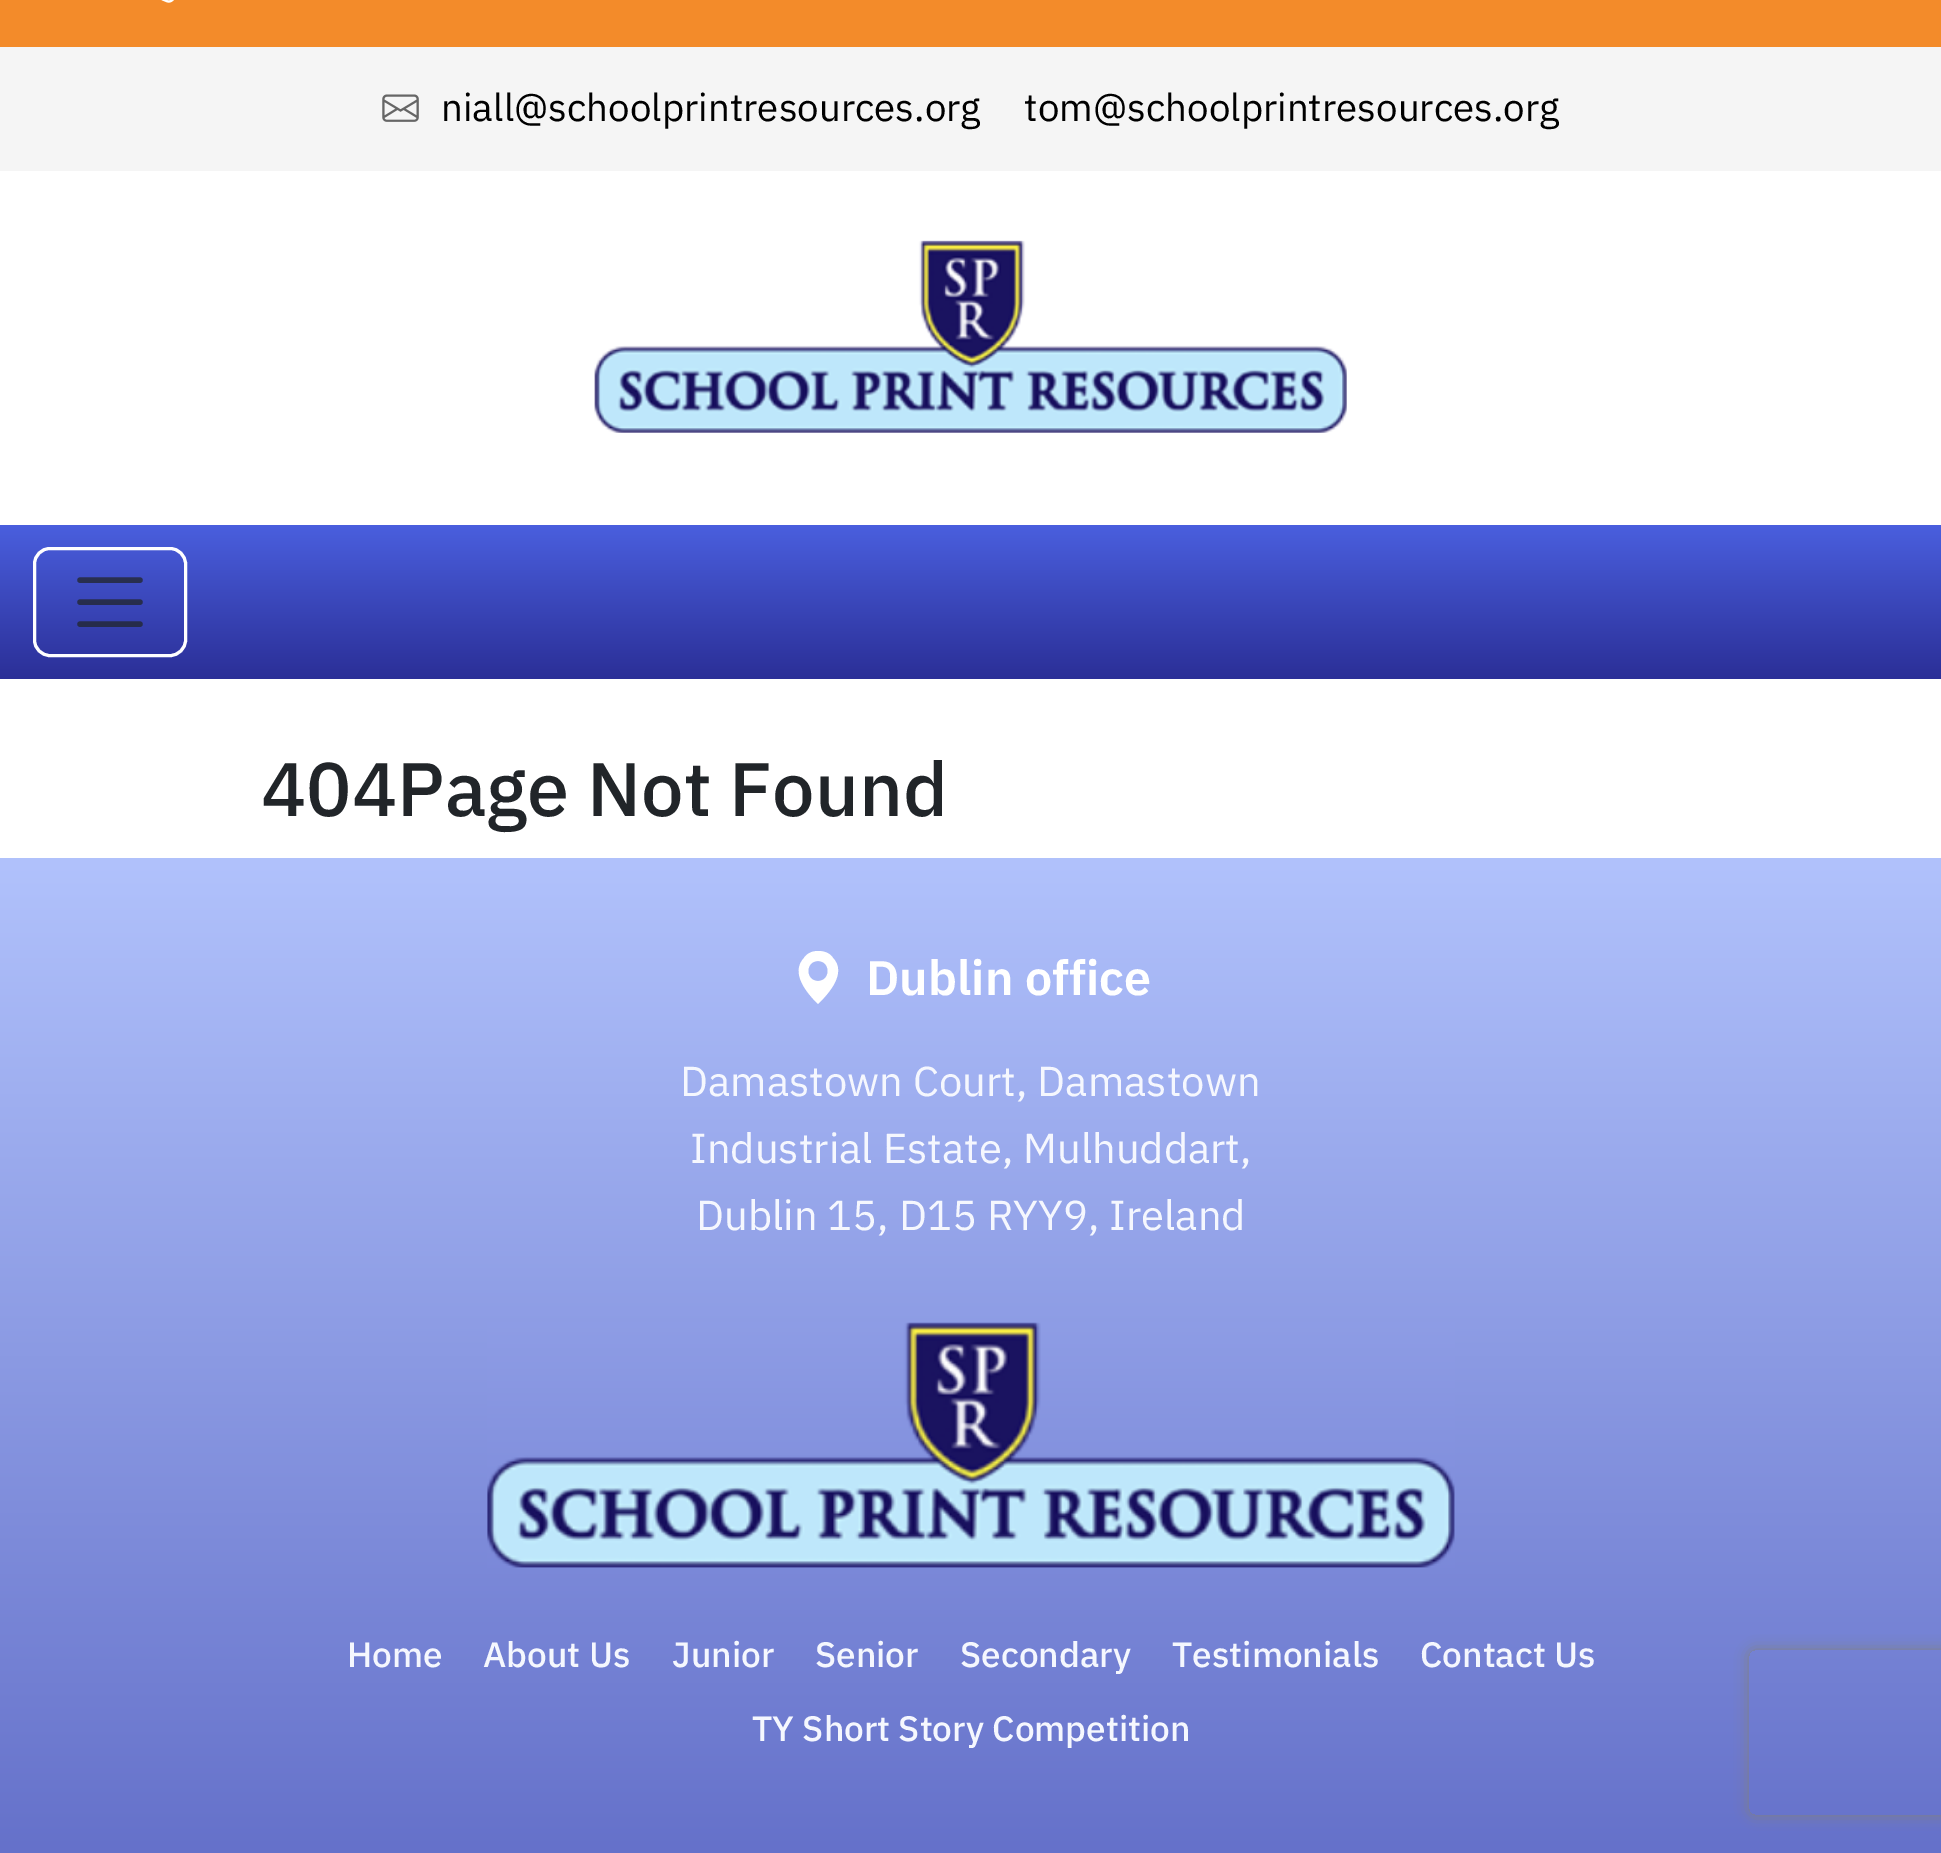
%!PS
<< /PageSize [1941 1853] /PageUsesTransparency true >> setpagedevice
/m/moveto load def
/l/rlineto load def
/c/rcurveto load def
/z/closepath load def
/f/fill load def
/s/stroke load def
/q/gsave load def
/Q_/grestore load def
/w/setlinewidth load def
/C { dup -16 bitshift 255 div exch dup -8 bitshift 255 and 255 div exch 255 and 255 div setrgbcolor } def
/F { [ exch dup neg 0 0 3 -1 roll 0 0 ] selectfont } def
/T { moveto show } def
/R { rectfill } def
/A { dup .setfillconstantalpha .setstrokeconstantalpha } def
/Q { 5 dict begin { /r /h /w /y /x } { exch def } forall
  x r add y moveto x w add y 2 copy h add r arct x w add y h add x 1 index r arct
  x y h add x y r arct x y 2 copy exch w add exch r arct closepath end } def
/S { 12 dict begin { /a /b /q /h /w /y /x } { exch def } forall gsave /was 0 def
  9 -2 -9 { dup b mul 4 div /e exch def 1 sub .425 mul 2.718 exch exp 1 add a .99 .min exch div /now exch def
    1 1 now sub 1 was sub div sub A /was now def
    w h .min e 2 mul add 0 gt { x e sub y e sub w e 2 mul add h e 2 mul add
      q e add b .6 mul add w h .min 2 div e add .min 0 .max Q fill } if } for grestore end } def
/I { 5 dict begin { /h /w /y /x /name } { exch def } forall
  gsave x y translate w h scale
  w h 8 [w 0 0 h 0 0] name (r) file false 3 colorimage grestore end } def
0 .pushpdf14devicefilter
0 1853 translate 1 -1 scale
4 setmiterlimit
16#FFFFFF C
0 0 1941 1853 R
16#F38B2A C
0 0 1941 47 R
(1.rgb) 161 0 13 3 I
16#F5F5F5 C
0 47 1941 124 R
(2.rgb) 382 94 37 28 I
/IBMPlexSans-Regular 38.5 F
16#000000 C
(niall@schoolprintresources.org) 441 121 T
(tom@schoolprintresources.org) 1024 121 T
(3.rgb) 594 240 753 193 I
q 0 525 m 1941 0 l 0 154 l -1941 0 l z clip newpath
<< /ShadingType 2 /ColorSpace /DeviceRGB /Coords [971 525 971 679] /Extend [true true] /Function << /FunctionType 2 /Domain [0 1] /C0 [.29 .373 .871] /C1 [.169 .184 .592] /N 1 >> >> shfill Q_
16#FFFFFF C
3 w
34.5 548.5 151 107 15.5 Q s
0.75 A
16#212529 C
5.5 w
1 setlinecap
80 580 m 60 0 l 80 602 m 60 0 l 80 624 m 60 0 l s
/IBMPlexSans-Medium 75.75 F
1 A
(404Page Not Found) 261 816 T
q 0 858 m 1941 0 l 0 995 l -1941 0 l z clip newpath
<< /ShadingType 2 /ColorSpace /DeviceRGB /Coords [971 858 971 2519] /Extend [true true] /Function << /FunctionType 2 /Domain [0 1] /C0 [.694 .761 .988] /C1 [.196 .231 .663] /N 1 >> >> shfill Q_
16#FFFFFF C
818 1004 m 11 -11 29 -31 15 -46 c -3 -5 -9 -7 -15 -7 c -5 0 -11 2 -14 7 c -14 15 3 35 14 46 c z 818 981 m -13 0 -13 -20 0 -20 c 13 0 13 20 0 20 c z f
/IBMPlexSans-SemiBold 48.5 F
(Dublin office) 866 995 T
/IBMPlexSans-Regular 41.75 F
16#F5F7FE C
(Damastown Court, Damastown) 680 1096 T
(Industrial Estate, Mulhuddart,) 690 1163 T
(Dublin 15, D15 RYY9, Ireland) 696 1230 T
(4.rgb) 487 1322 968 246 I
/IBMPlexSans-Medium 35.25 F
(Home) 347 1667 T
(About Us) 483 1667 T
(Junior) 672 1667 T
(Senior) 815 1667 T
(Secondary) 960 1667 T
(Testimonials) 1172 1667 T
(Contact Us) 1420 1667 T
(TY Short Story Competition) 752 1741 T
q
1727 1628 m 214 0 l 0 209 l -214 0 l z 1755 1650 m 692 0 l 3.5 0 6 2.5 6 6 c 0 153 l 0 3.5 -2.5 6 -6 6 c -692 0 l -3.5 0 -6 -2.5 -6 -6 c 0 -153 l 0 -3.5 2.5 -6 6 -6 c z eoclip newpath
16#808080 C
1749 1650 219 165 6 7 1 S
Q_
.poppdf14devicefilter showpage
